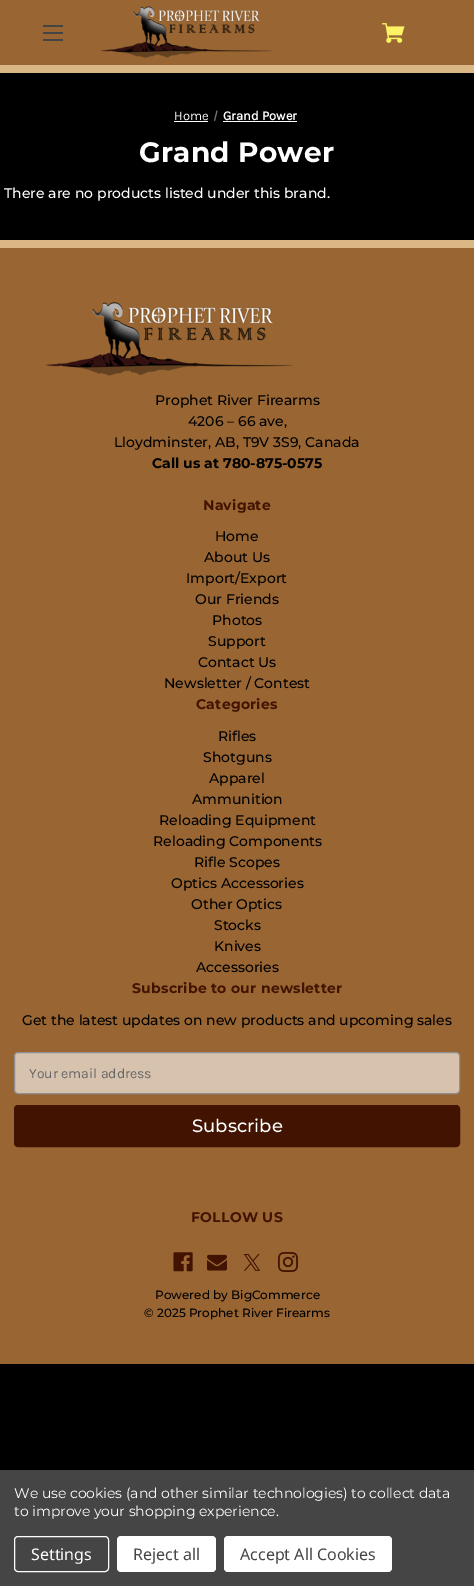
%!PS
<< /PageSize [474 1586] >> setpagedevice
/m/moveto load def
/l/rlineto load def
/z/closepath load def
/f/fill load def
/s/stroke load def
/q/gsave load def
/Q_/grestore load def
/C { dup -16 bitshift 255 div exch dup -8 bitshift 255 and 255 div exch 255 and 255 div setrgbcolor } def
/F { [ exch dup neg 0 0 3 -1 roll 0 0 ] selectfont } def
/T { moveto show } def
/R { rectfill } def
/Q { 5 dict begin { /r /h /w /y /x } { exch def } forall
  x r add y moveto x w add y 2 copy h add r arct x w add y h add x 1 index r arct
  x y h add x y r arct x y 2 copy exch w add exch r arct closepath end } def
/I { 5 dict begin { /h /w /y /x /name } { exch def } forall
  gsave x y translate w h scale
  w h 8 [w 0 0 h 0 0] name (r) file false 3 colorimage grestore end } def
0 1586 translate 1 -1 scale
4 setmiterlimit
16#000000 C
0 0 474 1586 R
16#996633 C
0 0 474 65 R
16#DBB786 C
0 65 474 8 R
16#444444 C
43 32 20 2 R
43 25 20 2 R
43 39 20 2 R
(1.rgb) 100 6 173 52 I
(2.rgb) 382 23 23 20 I
/Karla-Regular 13 F
16#FFFFFF C
(Home) 174 120 T
174 121 34 1 R
16#757575 C
216.5 110.5 m 1 .5 l -2.5 10 l -1 -.5 l z f
/Karla-Bold 13 F
16#FFFFFF C
(Grand Power) 223 120 T
223 121 74 1 R
/Montserrat-Bold 28 F
139 162 m .25 0 (Grand Power) ashow
/Montserrat-Medium 14 F
(There are no products listed under this brand.) 4 198 T
16#996633 C
0 248 474 1116 R
16#DBB786 C
0 240 474 8 R
(3.rgb) 45 302 248 74 I
16#000000 C
(Prophet River Firearms) 155 405 T
(4206 – 66 ave,) 188 426 T
(Lloydminster, AB, T9V 3S9, Canada) 114 447 T
/Montserrat-Bold 14 F
(Call us at 780-875-0575) 152 468 T
16#411300 C
203 510 m .25 0 (Navigate) ashow
/Montserrat-Medium 14 F
16#000000 C
(Home) 215 541 T
(About Us) 204 562 T
(Import/Export) 186 583 T
(Our Friends) 195 604 T
(Photos) 212 625 T
(Support) 208 646 T
(Contact Us) 198 667 T
(Newsletter / Contest) 164 688 T
/Montserrat-Bold 14 F
16#411300 C
196 709 m .25 0 (Categories) ashow
/Montserrat-Medium 14 F
16#000000 C
(Rifles) 218 741 T
(Shotguns) 203 762 T
(Apparel) 209 783 T
(Ammunition) 192 804 T
(Reloading Equipment) 159 825 T
(Reloading Components) 153 846 T
(Rifle Scopes) 194 867 T
(Optics Accessories) 171 888 T
(Other Optics) 191 909 T
(Stocks) 214 930 T
(Knives) 214 951 T
(Accessories) 196 972 T
/Montserrat-Bold 14 F
16#411300 C
132 993 m .25 0 (Subscribe to our newsletter) ashow
/Montserrat-Medium 14 F
16#000000 C
(Get the latest updates on new products and upcoming sales) 22 1025 T
16#D6C2AD C
14.5 1052.5 445 41 3.5 Q q f Q_
16#8F8F8F C
s
/Karla-Regular 14 F
16#666666 C
(Your email address) 29 1078 T
16#411300 C
14.5 1105.5 445 41 3.5 Q q f Q_
s
/Montserrat-Medium 18 F
16#FFFFFF C
(Subscribe) 192 1132 T
/Montserrat-Bold 14 F
16#411300 C
191 1222 m .25 0 (FOLLOW US) ashow
(4.rgb) 173 1252 20 20 I
(5.rgb) 207 1254 20 17 I
(6.rgb) 244 1254 16 17 I
(7.rgb) 278 1252 20 20 I
/Montserrat-Medium 12 F
16#000000 C
(Powered by BigCommerce) 155 1299 T
(© 2025 Prophet River Firearms) 144 1317 T
16#454545 C
0 1470 474 116 R
/Montserrat-Regular 14 F
16#FFFFFF C
14 1498 m -.05 0 (We use cookies \(and other similar technologies\) to collect data) ashow
14 1516 m -.05 0 (to improve your shopping experience.) ashow
14.5 1536.5 94 35 3.5 Q s
/NotoSans-Regular 16 F
(Settings) 31 1560 T
117 1536 99 36 4 Q f
16#454545 C
(Reject all) 133 1560 T
16#FFFFFF C
224 1536 168 36 4 Q f
16#454545 C
(Accept All Cookies) 240 1560 T
showpage
